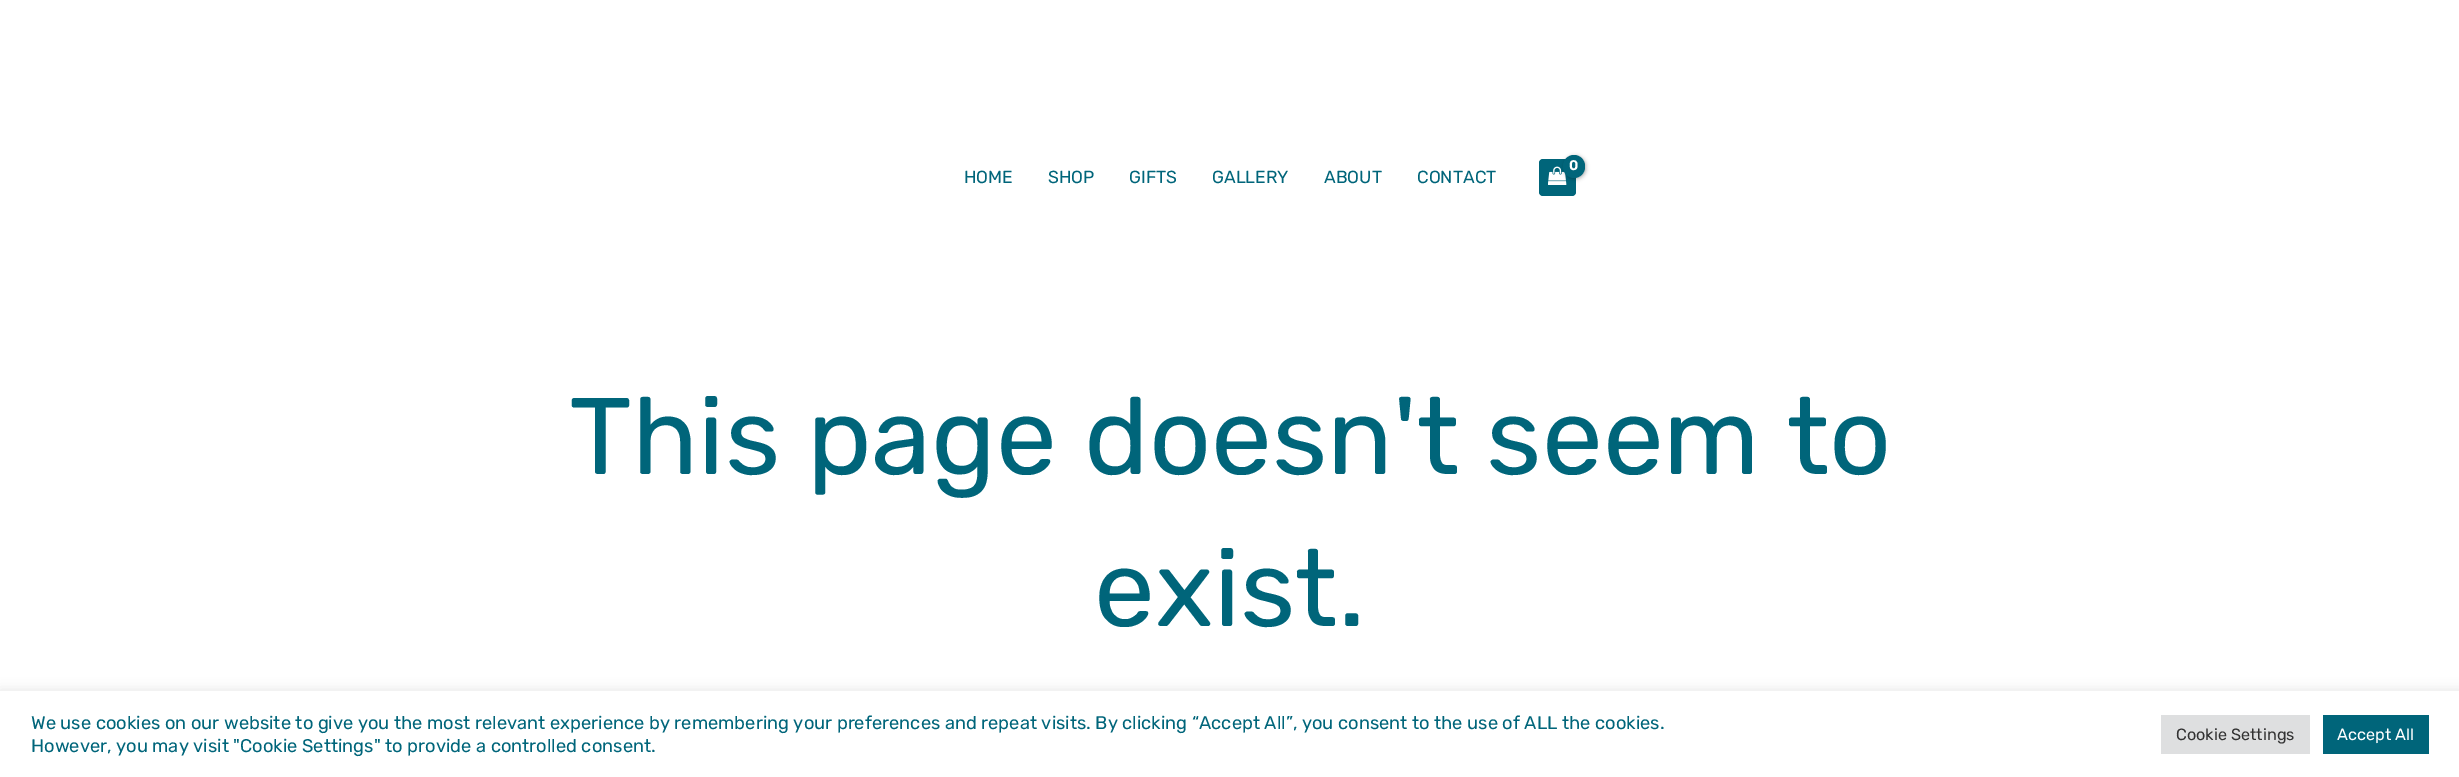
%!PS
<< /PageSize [2459 777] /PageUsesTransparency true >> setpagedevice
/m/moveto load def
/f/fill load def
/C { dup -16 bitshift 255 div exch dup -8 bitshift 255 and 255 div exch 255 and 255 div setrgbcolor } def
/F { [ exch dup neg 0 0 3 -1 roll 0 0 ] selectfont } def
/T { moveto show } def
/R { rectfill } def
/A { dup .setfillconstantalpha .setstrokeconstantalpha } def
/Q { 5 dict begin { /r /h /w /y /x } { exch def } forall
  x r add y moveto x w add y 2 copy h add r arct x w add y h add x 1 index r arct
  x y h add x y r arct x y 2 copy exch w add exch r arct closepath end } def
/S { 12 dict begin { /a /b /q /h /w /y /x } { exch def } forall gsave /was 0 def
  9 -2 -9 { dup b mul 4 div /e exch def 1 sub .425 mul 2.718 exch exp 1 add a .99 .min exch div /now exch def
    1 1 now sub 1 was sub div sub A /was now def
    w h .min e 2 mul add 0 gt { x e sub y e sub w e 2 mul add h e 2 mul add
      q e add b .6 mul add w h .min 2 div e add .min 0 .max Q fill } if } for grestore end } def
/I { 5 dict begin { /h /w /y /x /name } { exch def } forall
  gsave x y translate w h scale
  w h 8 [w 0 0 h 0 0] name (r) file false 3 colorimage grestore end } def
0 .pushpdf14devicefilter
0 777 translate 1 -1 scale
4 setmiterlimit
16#FFFFFF C
0 0 2459 777 R
16#00657A C
1539 159 37 37 4 Q f
(1.rgb) 1548 166 19 19 I
16#000000 C
1564 156 22 23 11 2 .3 S
16#00657A C
1563 155 22 23 11 Q f
/Rubik-SemiBold 14 F
16#FFFFFF C
1569 170 m -1 0 (0) ashow
/Rubik-Light 17.5 F
16#00657A C
(HOME) 964 183 T
(SHOP) 1048 183 T
(GIFTS) 1129 183 T
(GALLERY) 1212 183 T
(ABOUT) 1324 183 T
(CONTACT) 1417 183 T
/Rubik-Light 108.75 F
(This page doesn't seem to) 569 474 T
(exist.) 1094 626 T
16#ACABAB C
0 690 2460 86 0 6 .3 S
16#FFFFFF C
0 691 2459 86 R
/Rubik-Light 18.33 F
16#00657A C
(We use cookies on our website to give you the most relevant experience by remembering your preferences and repeat visits. By clicking “Accept All”, you consent to the use of ALL the cookies.) 31 729 T
(However, you may visit "Cookie Settings" to provide a controlled consent.) 31 752 T
16#DEDFE0 C
2161 715 149 39 R
/Rubik-Light 16.25 F
16#333333 C
(Cookie Settings) 2176 740 T
16#00657A C
2323 715 106 39 R
16#FFFFFF C
(Accept All) 2337 740 T
.poppdf14devicefilter showpage
